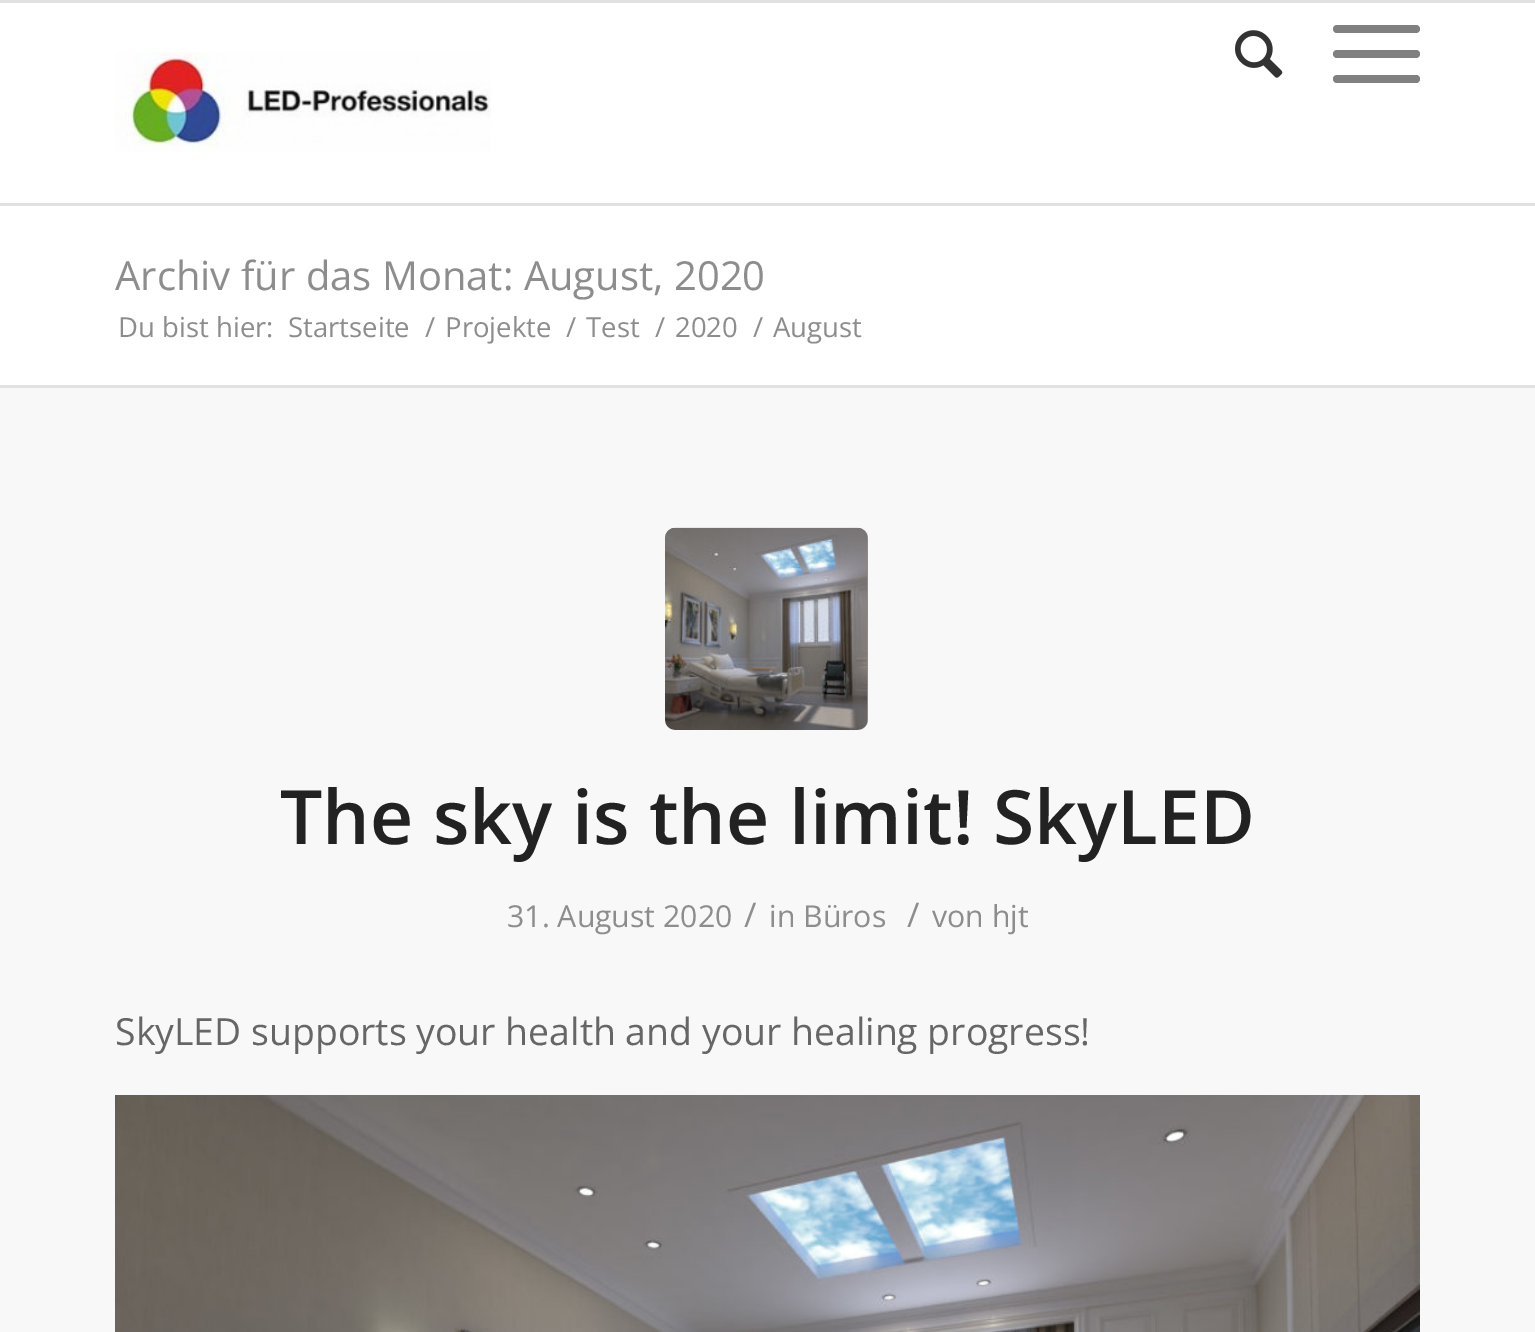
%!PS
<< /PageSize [1535 1332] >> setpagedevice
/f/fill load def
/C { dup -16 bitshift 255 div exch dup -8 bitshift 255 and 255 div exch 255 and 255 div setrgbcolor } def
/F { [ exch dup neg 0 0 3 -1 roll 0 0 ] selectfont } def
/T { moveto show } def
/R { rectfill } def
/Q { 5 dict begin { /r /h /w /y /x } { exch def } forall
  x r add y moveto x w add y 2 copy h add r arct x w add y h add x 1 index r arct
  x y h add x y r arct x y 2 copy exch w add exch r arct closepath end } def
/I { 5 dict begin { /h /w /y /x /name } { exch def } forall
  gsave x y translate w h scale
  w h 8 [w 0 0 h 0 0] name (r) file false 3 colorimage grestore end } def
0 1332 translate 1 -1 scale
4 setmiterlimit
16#FFFFFF C
0 0 1535 1332 R
16#E1E1E1 C
0 0 1535 3 R
0 203 1535 3 R
(1.rgb) 115 52 376 100 I
(2.rgb) 1235 30 48 48 I
16#808080 C
1333 50 87 8 4 Q f
1333 25 87 8 4 Q f
1333 75 87 8 4 Q f
/OpenSans-Regular 40 F
16#8D8D8D C
(Archiv für das Monat: August, 2020) 115 290 T
/OpenSans-Regular 27.5 F
(Du bist hier:) 118 337 T
(Startseite) 288 337 T
(/) 425 337 T
(Projekte) 445 337 T
(/) 566 337 T
(Test) 586 337 T
(/) 655 337 T
(2020) 675 337 T
(/) 753 337 T
(August) 773 337 T
16#F8F8F8 C
0 388 1535 944 R
16#E1E1E1 C
0 385 1535 3 R
16#8D8D8D C
665 528 203 202 10 Q f
(3.rgb) 665 527 203 203 I
/OpenSans-SemiBold 75 F
16#222222 C
(The sky is the limit! SkyLED) 280 844 T
/OpenSans-Regular 30.25 F
16#8D8D8D C
(31. August 2020) 507 927 T
/OpenSans-Regular 34 F
(/) 744 927 T
/OpenSans-Regular 30.25 F
(in Büros) 769 927 T
/OpenSans-Regular 34 F
(/) 907 927 T
/OpenSans-Regular 30.25 F
(von hjt) 932 927 T
/OpenSans-Regular 37.4 F
16#666666 C
(SkyLED supports your health and your healing progress!) 115 1045 T
(4.rgb) 115 1095 1305 237 I
showpage
